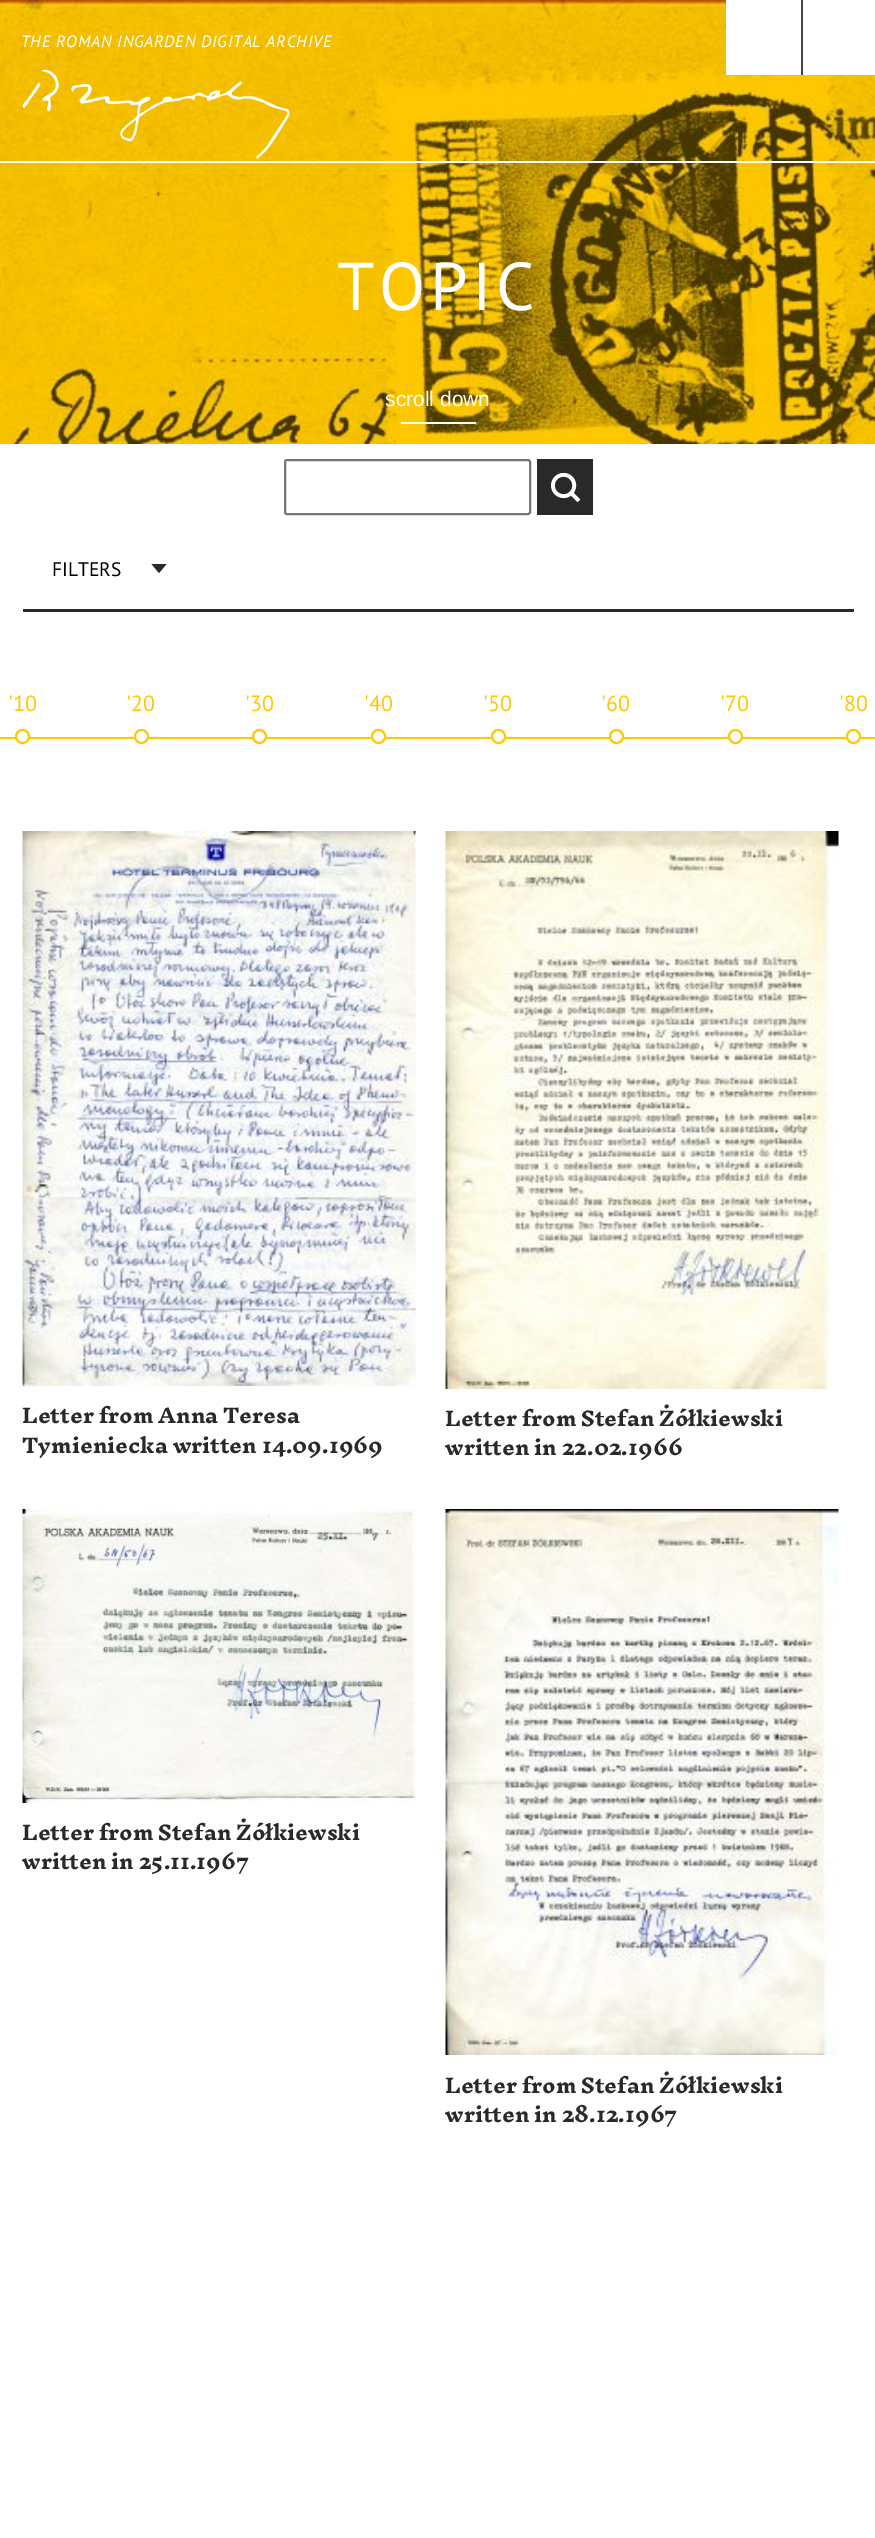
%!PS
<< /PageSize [875 2538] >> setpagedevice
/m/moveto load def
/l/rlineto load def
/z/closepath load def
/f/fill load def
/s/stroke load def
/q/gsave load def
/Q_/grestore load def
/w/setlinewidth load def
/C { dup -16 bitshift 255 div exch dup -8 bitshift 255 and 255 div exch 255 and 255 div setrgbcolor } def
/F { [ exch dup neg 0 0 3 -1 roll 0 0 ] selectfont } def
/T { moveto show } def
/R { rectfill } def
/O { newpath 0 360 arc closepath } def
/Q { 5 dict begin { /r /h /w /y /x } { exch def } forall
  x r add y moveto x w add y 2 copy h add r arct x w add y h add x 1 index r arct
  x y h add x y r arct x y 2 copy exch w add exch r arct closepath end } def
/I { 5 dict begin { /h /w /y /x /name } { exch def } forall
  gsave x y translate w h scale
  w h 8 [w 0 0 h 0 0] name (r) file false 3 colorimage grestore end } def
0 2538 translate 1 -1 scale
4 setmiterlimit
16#FFFFFF C
0 0 875 2538 R
(1.rgb) 0 0 875 444 I
0 161 875 2 R
/PTSans-Italic 16.5 F
21 47 m .75 0 (THE ROMAN INGARDEN DIGITAL ARCHIVE) ashow
(2.rgb) 22 69 268 90 I
726 0 75 75 R
803 0 72 75 R
16#444444 C
801 0 2 75 R
/PTSans-Regular 67.5 F
16#FFFFFF C
337 310 m 4.5 0 (TOPIC) ashow
/LiberationSans-Regular 21 F
(scroll down) 385 406 T
401 422 75 2 R
16#767676 C
2 w
285 460 245 54 2 Q s
16#292929 C
537 459 56 56 R
(3.rgb) 551 473 30 30 I
23 609 831 3 R
/PTSans-Regular 19.5 F
16#000000 C
(FILTERS) 52 576 T
16#292929 C
151.5 564 m 15 0 l -7.5 9 l z f
16#FFC800 C
0 737 875 2 R
/PTSans-Regular 22 F
('10) 8 711 T
16#FFFFFF C
22.5 736.5 6.5 O q f Q_
16#FFC800 C
s
('20) 126 711 T
16#FFFFFF C
141.5 736.5 6.5 O q f Q_
16#FFC800 C
s
('30) 245 711 T
16#FFFFFF C
259.5 736.5 6.5 O q f Q_
16#FFC800 C
s
('40) 364 711 T
16#FFFFFF C
378.5 736.5 6.5 O q f Q_
16#FFC800 C
s
('50) 483 711 T
16#FFFFFF C
498.5 736.5 6.5 O q f Q_
16#FFC800 C
s
('60) 601 711 T
16#FFFFFF C
616.5 736.5 6.5 O q f Q_
16#FFC800 C
s
('70) 720 711 T
16#FFFFFF C
735.5 736.5 6.5 O q f Q_
16#FFC800 C
s
('80) 839 711 T
16#FFFFFF C
853.5 736.5 6.5 O q f Q_
16#FFC800 C
s
(4.rgb) 22 831 394 555 I
/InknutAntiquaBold-Bold 19.5 F
16#292929 C
(Letter from Anna Teresa) 22 1423 T
(Tymieniecka written 14.09.1969) 22 1453 T
(5.rgb) 445 831 394 558 I
(Letter from Stefan Żółkiewski) 445 1426 T
(written in 22.02.1966) 445 1455 T
(6.rgb) 22 1509 394 294 I
(Letter from Stefan Żółkiewski) 22 1840 T
(written in 25.11.1967) 22 1869 T
(7.rgb) 445 1509 394 546 I
(Letter from Stefan Żółkiewski) 445 2093 T
(written in 28.12.1967) 445 2122 T
showpage
